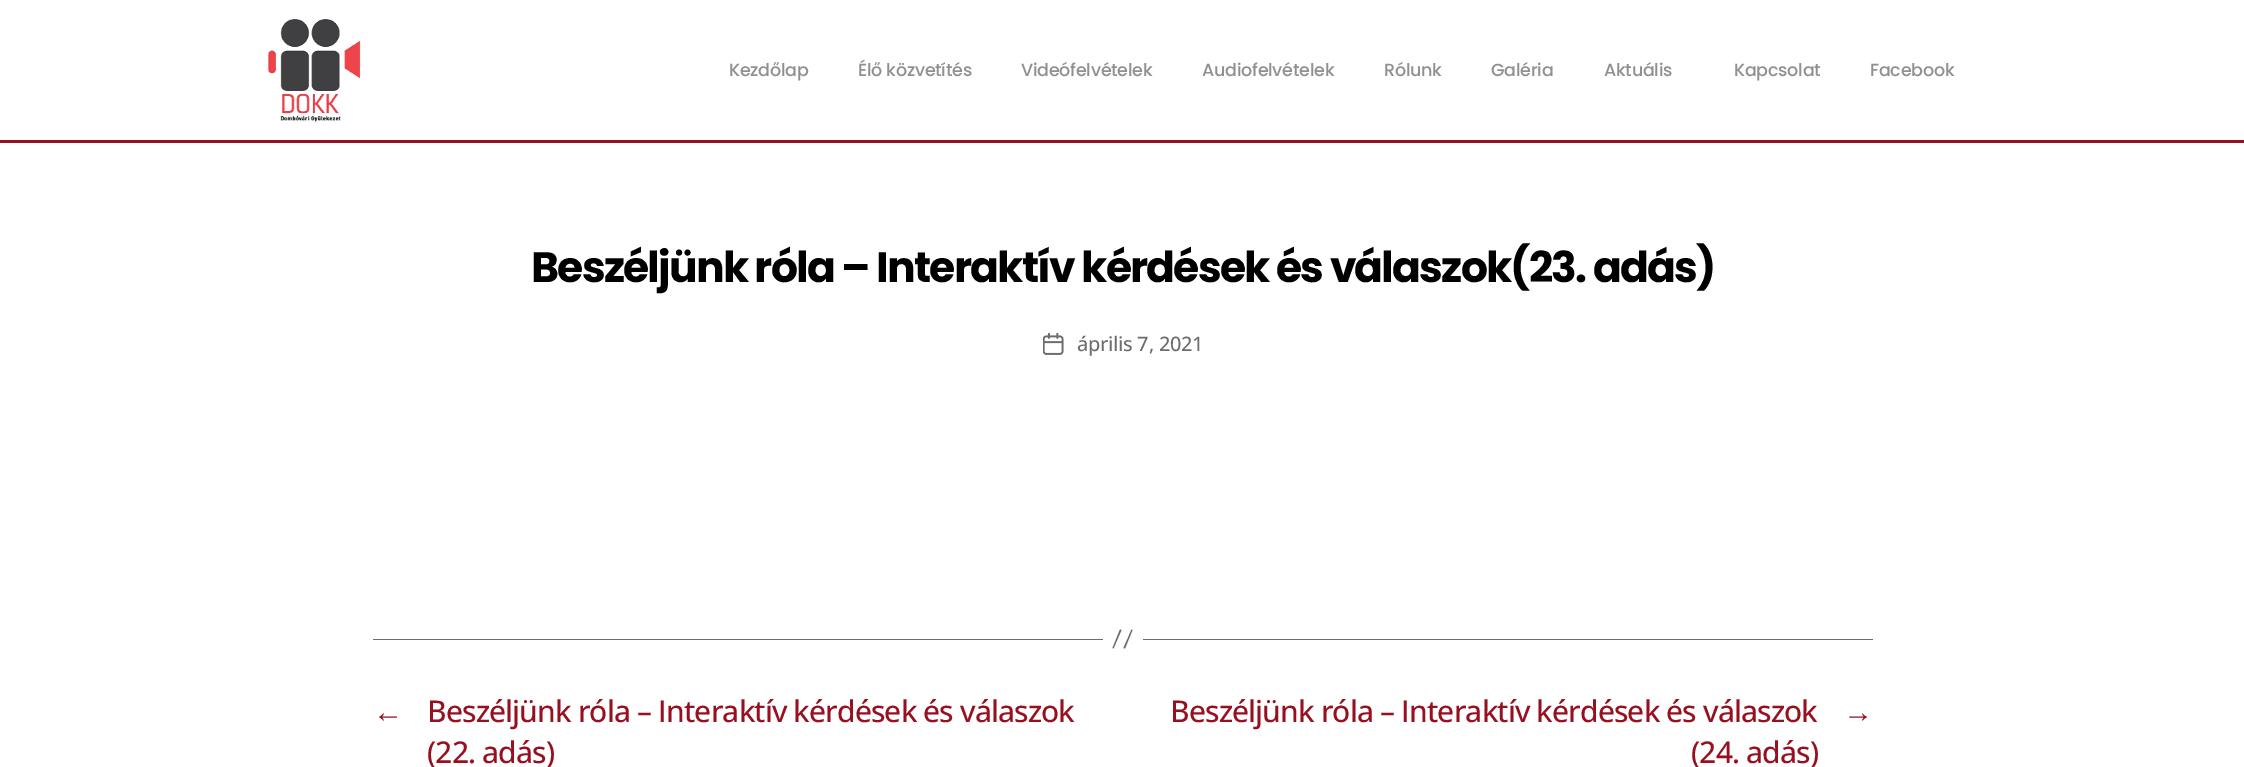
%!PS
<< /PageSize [2244 767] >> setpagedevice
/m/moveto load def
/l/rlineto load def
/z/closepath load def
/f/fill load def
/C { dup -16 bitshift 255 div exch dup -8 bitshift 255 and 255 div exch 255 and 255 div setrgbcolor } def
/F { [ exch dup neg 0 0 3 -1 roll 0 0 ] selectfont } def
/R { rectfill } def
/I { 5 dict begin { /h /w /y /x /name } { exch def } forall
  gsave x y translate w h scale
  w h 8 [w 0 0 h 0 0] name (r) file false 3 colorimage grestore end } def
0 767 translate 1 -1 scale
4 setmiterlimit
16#FFFFFF C
0 0 2244 767 R
16#981020 C
0 140 2244 3 R
(1.rgb) 268 19 93 103 I
/Poppins-Medium 17.5 F
16#909090 C
729 76 m -.25 0 (Kezdőlap) ashow
858 76 m -.25 0 (Élő közvetítés) ashow
1021 76 m -.25 0 (Videófelvételek) ashow
1202 76 m -.25 0 (Audiofelvételek) ashow
1384 76 m -.25 0 (Rólunk) ashow
1491 76 m -.25 0 (Galéria) ashow
1604 76 m -.25 0 (Aktuális) ashow
1734 76 m -.25 0 (Kapcsolat) ashow
1870 76 m -.25 0 (Facebook) ashow
/Poppins-Bold 42.5 F
16#000000 C
531 282 m -1.77 0 (Beszéljünk róla – Interaktív kérdések és válaszok\(23. adás\)) ashow
(2.rgb) 1043 333 21 22 I
/OpenSans-Medium 20 F
16#6D6D6D C
1077 351 m -.3 0 (április 7, 2021) ashow
1143 639 730 1 R
373 639 730 1 R
1120 629.5 m 1.5 .5 l -8 18.5 l -1 -.5 l z 1131.5 629.5 m 1 .5 l -7.5 18.5 l -1.5 -.5 l z f
/LiberationSans-Regular 30 F
16#981020 C
373 722 m -.85 0 (←) ashow
/OpenSans-Medium 30 F
427 722 m -.85 0 (Beszéljünk róla – Interaktív kérdések és válaszok) ashow
427 763 m -.85 0 (\(22. adás\)) ashow
1170 722 m -.85 0 (Beszéljünk róla – Interaktív kérdések és válaszok) ashow
1691 763 m -.85 0 (\(24. adás\)) ashow
/LiberationSans-Regular 30 F
1843 722 m -.85 0 (→) ashow
showpage
